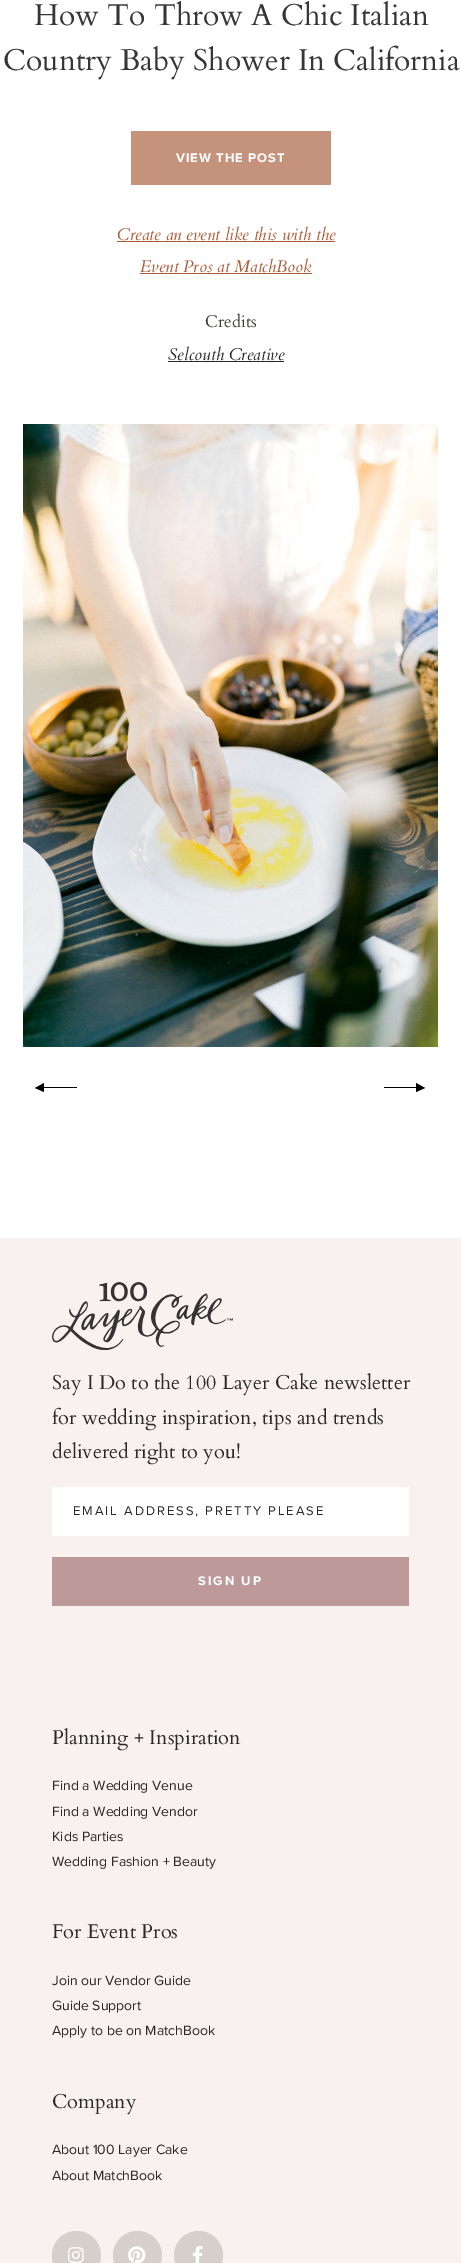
%!PS
<< /PageSize [461 2263] >> setpagedevice
/m/moveto load def
/l/rlineto load def
/z/closepath load def
/f/fill load def
/q/gsave load def
/Q_/grestore load def
/C { dup -16 bitshift 255 div exch dup -8 bitshift 255 and 255 div exch 255 and 255 div setrgbcolor } def
/F { [ exch dup neg 0 0 3 -1 roll 0 0 ] selectfont } def
/T { moveto show } def
/R { rectfill } def
/O { newpath 0 360 arc closepath } def
/I { 5 dict begin { /h /w /y /x /name } { exch def } forall
  gsave x y translate w h scale
  w h 8 [w 0 0 h 0 0] name (r) file false 3 colorimage grestore end } def
0 2263 translate 1 -1 scale
4 setmiterlimit
16#FFFFFF C
0 0 461 2263 R
/Cardo-Regular 30 F
16#363636 C
(How To Throw A Chic Italian) 34 25 T
(Country Baby Shower In California) 3 70 T
16#C5937C C
131 131 200 54 R
/ProximaNova-Bold 13 F
16#FFFFFF C
176 162 m 1 0 (VIEW THE POST) ashow
/Cardo-Italic 17 F
16#AB5C37 C
(Create an event like this with the) 117 240 T
117 241 218 1 R
(Event Pros at MatchBook) 140 272 T
140 273 172 1 R
/Cardo-Regular 17 F
16#3D3C39 C
(Credits) 205 327 T
/Cardo-Italic 17 F
16#282828 C
(Selcouth Creative) 168 360 T
168 361 116 1 R
(1.rgb) 23 424 415 623 I
q
35 1083 42 9 rectclip
16#000000 C
44 1083 m 0 4 l 52 0 l 0 1 l -52 0 l 0 4 l -9 -4 l z f
Q_
q
384 1083 41 9 rectclip
16#000000 C
416 1083 m 9 5 l -9 4 l 0 -4 l -52 0 l 0 -1 l 52 0 l z f
Q_
16#F8F1EF C
0 1238 461 1025 R
(2.rgb) 52 1282 181 68 I
/Cardo-Regular 20 F
16#282828 C
(Say I Do to the 100 Layer Cake newsletter) 52 1389 T
(for wedding inspiration, tips and trends) 52 1424 T
(delivered right to you!) 52 1458 T
16#FFFFFF C
52 1487 357 49 R
/ProximaNova-Regular 13 F
16#282828 C
73 1515 m 1.95 0 (EMAIL ADDRESS, PRETTY PLEASE) ashow
16#BE9999 C
52 1557 357 49 R
/ProximaNova-Bold 13 F
16#FFFFFF C
198 1585 m 1.95 0 (SIGN UP) ashow
/Cardo-Regular 20 F
16#282828 C
(Planning + Inspiration) 52 1744 T
/ProximaNova-Regular 14 F
(Find a Wedding Venue) 52 1790 T
(Find a Wedding Vendor) 52 1816 T
(Kids Parties) 52 1841 T
(Wedding Fashion + Beauty) 52 1866 T
/Cardo-Regular 20 F
(For Event Pros) 52 1938 T
/ProximaNova-Regular 14 F
(Join our Vendor Guide) 52 1985 T
(Guide Support) 52 2010 T
(Apply to be on MatchBook) 52 2035 T
/Cardo-Regular 20 F
(Company) 52 2108 T
/ProximaNova-Regular 14 F
(About 100 Layer Cake) 52 2154 T
(About MatchBook) 52 2180 T
16#D6CFCA C
76.5 2255.5 24.5 O f
(3.rgb) 68 2247 16 16 I
137.5 2255.5 24.5 O f
(4.rgb) 128 2246 18 17 I
198.5 2255.5 24.5 O f
(5.rgb) 192 2246 11 17 I
showpage
